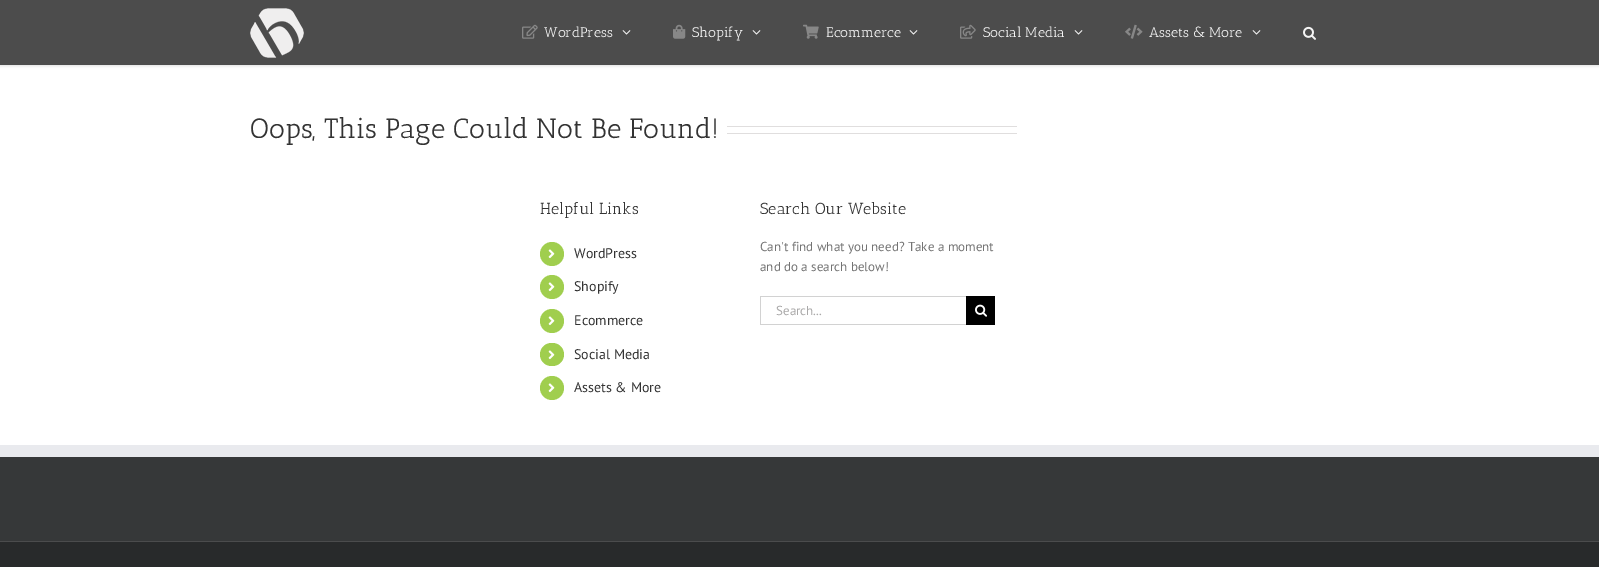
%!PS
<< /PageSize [1599 567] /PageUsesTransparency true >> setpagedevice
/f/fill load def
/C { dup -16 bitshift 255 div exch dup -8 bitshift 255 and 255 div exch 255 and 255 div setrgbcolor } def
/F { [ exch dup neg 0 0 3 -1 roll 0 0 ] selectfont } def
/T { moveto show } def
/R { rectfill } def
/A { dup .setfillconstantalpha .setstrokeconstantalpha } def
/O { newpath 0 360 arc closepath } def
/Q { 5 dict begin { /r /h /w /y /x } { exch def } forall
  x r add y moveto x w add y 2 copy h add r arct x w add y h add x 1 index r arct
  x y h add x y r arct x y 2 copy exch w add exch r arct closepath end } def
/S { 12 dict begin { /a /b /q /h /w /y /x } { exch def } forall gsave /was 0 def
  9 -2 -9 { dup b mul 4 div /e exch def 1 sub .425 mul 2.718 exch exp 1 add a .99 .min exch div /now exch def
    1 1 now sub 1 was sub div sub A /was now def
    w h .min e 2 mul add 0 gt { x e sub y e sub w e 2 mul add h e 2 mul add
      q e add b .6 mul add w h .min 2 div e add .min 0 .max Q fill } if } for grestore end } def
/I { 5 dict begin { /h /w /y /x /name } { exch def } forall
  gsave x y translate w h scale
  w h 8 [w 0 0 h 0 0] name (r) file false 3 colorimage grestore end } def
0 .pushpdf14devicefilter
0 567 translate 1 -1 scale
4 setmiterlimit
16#FFFFFF C
0 0 1599 567 R
16#000000 C
0 1 1599 65 0 1.5 .12 S
16#4C4C4C C
0 0 1599 65 R
(1.rgb) 250 8 54 50 I
(2.rgb) 522 24 16 15 I
/AnticSlab-Regular 14 F
16#F4F4F4 C
(WordPress) 544 37 T
(3.rgb) 622 30 9 5 I
(4.rgb) 673 24 13 15 I
(Shopify) 692 37 T
(3.rgb) 752 30 9 5 I
(5.rgb) 803 24 16 15 I
(Ecommerce) 826 37 T
(3.rgb) 909 30 9 5 I
(6.rgb) 960 24 16 15 I
(Social Media) 983 37 T
(3.rgb) 1074 30 9 5 I
(7.rgb) 1125 24 18 15 I
(Assets & More) 1149 37 T
(3.rgb) 1252 30 9 5 I
(8.rgb) 1303 26 13 14 I
/AnticSlab-Regular 28 F
16#333333 C
(Oops, This Page Could Not Be Found!) 250 138 T
16#E0DEDE C
727 126 290 1 R
727 133 290 1 R
/AnticSlab-Regular 16 F
16#333333 C
(Helpful Links) 540 214 T
16#A0CE4E C
552 254 12 O f
(9.rgb) 548 249 7 10 I
/PTSans-Regular 14 F
16#333333 C
(WordPress) 574 258 T
16#A0CE4E C
552 287 12 O f
(9.rgb) 548 282 7 10 I
16#333333 C
(Shopify) 574 291 T
16#A0CE4E C
552 321 12 O f
(9.rgb) 548 316 7 10 I
16#333333 C
(Ecommerce) 574 325 T
16#A0CE4E C
540 343 24 23 11.5 Q f
(9.rgb) 548 350 7 10 I
16#333333 C
(Social Media) 574 359 T
16#A0CE4E C
552 388 12 O f
(9.rgb) 548 383 7 10 I
16#333333 C
(Assets & More) 574 392 T
/AnticSlab-Regular 16 F
(Search Our Website) 760 214 T
/PTSans-Regular 13 F
16#747474 C
(Can't find what you need? Take a moment) 760 251 T
(and do a search below!) 760 271 T
16#D2D2D2 C
760 296 206 1 R
760 324 206 1 R
760 296 1 29 R
16#AAA9A9 C
(Search...) 776 315 T
16#000000 C
966 296 29 29 R
(10.rgb) 975 304 12 13 I
16#363839 C
0 457 1599 84 R
16#E9EAEE C
0 445 1599 12 R
16#282A2B C
0 542 1599 25 R
16#4B4C4D C
0 541 1599 1 R
.poppdf14devicefilter showpage
